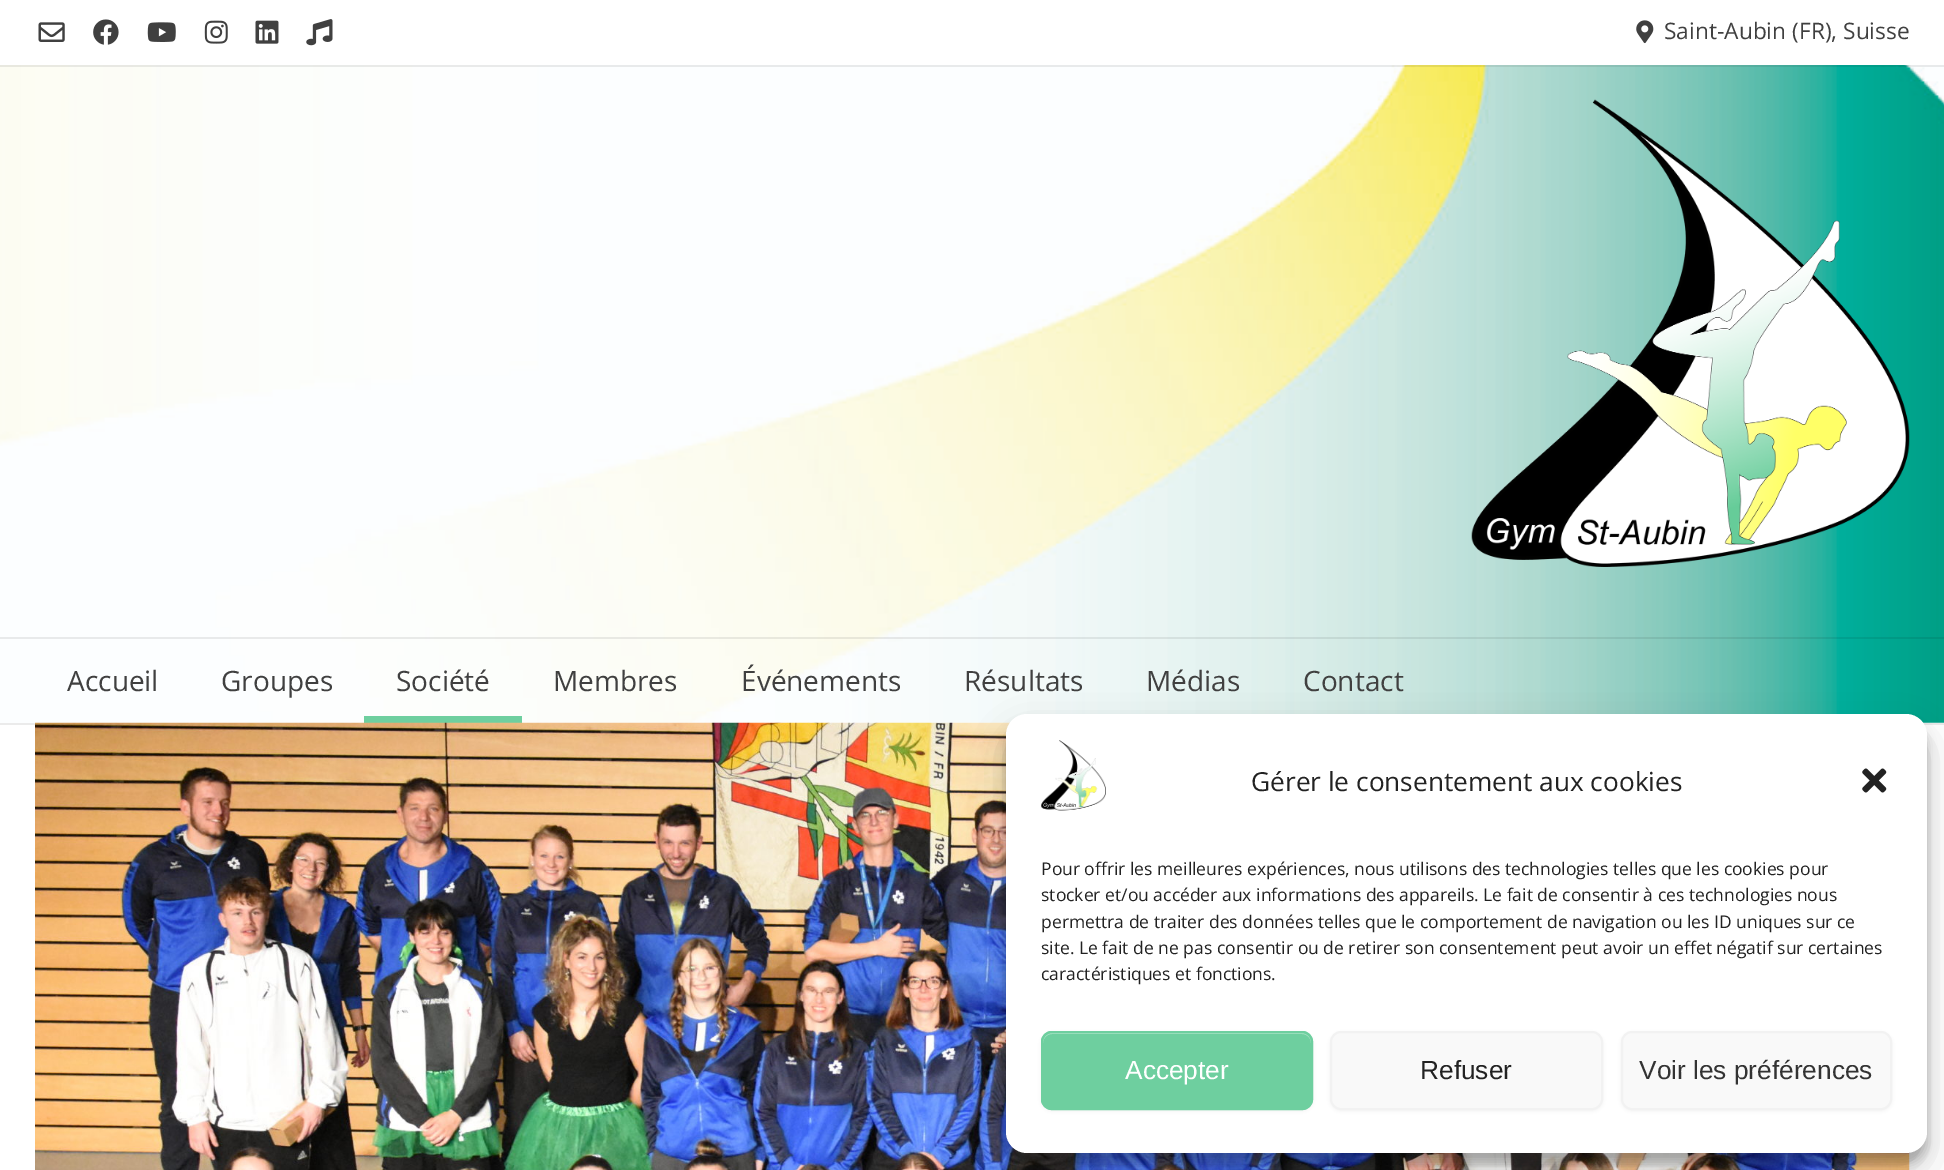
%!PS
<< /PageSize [1944 1170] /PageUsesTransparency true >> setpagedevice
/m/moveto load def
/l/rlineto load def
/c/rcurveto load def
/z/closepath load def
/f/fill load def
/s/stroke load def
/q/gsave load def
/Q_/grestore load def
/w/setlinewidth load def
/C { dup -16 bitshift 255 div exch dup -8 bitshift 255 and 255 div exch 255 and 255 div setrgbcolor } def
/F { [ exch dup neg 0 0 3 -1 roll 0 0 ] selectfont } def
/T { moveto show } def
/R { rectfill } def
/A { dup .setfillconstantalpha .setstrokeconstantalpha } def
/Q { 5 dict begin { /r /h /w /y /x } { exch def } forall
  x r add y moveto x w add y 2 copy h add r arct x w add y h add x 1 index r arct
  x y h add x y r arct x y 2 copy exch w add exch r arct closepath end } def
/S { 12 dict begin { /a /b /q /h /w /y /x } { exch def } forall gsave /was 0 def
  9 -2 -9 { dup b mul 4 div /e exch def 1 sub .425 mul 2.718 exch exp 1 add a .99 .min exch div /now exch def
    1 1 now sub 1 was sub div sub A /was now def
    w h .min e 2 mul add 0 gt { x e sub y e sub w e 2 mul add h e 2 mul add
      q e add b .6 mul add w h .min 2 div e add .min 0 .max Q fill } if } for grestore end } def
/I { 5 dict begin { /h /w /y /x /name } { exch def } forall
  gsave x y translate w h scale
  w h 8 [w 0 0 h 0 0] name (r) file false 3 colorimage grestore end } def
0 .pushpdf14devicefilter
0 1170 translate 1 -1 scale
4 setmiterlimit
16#FFFFFF C
0 0 1944 1170 R
16#EBEBEB C
0 723 1944 2 R
(1.rgb) 0 65 1944 658 I
0.08 A
16#000000 C
0 65 1944 2 R
1 A
(2.rgb) 38 22 27 20 I
(3.rgb) 93 19 26 26 I
(4.rgb) 147 22 29 20 I
(5.rgb) 204 20 24 24 I
(6.rgb) 255 20 24 24 I
(7.rgb) 306 19 27 27 I
(8.rgb) 1636 20 18 24 I
/OpenSans-Regular 22.75 F
16#404040 C
(Saint-Aubin \(FR\), Suisse) 1664 39 T
(9.rgb) 1471 99 439 468 I
0.08 A
16#000000 C
0 637 1944 2 R
/OpenSans-Regular 28 F
1 A
16#404040 C
(Accueil) 67 691 T
(Groupes) 221 691 T
16#6ECF9F C
364 716 158 7 R
16#404040 C
(Société) 396 691 T
(Membres) 553 691 T
(Événements) 741 691 T
(Résultats) 964 691 T
(Médias) 1146 691 T
(Contact) 1303 691 T
(10.rgb) 35 722 1875 448 I
16#000000 C
1006 725 921 439 21 5 .23 S
1006 732 921 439 21 17.5 .19 S
16#FFFFFF C
1006 714 921 439 21 Q f
(11.rgb) 1041 740 65 71 I
/OpenSans-Regular 26.25 F
16#222222 C
(Gérer le consentement aux cookies) 1251 791 T
(12.rgb) 1862 768 25 25 I
/OpenSans-Regular 17.5 F
(Pour offrir les meilleures expériences, nous utilisons des technologies telles que les cookies pour) 1041 875 T
(stocker et/ou accéder aux informations des appareils. Le fait de consentir à ces technologies nous) 1041 901 T
(permettra de traiter des données telles que le comportement de navigation ou les ID uniques sur ce) 1041 928 T
(site. Le fait de ne pas consentir ou de retirer son consentement peut avoir un effet négatif sur certaines) 1041 954 T
(caractéristiques et fonctions.) 1041 980 T
16#000000 C
1041 1033 272 78 11 2 .06 S
16#6ECF9F C
1041 1031 272 79 11 Q f
16#A8E2C5 C
1052 1034 m 250 0 l 5 0 9 4 9 9 c 0 -1 l 0 -5 -4 -9 -9 -9 c -250 0 l -5 0 -9 4 -9 9 c 0 1 l 0 -5 4 -9 9 -9 c z f
16#6ECF9F C
2 w
1042 1032 270 77 10 Q s
/LiberationSans-Regular 26.25 F
16#FFFFFF C
(Accepter) 1125 1079 T
16#000000 C
1330 1033 273 78 11 2 .06 S
16#F9F9F9 C
1331 1032 271 77 10 Q q f Q_
16#F2F2F2 C
s
16#222222 C
(Refuser) 1420 1079 T
16#000000 C
1621 1033 271 78 11 2 .06 S
16#F9F9F9 C
1622 1032 269 77 10 Q q f Q_
16#F2F2F2 C
s
16#333333 C
(Voir les préférences) 1639 1079 T
.poppdf14devicefilter showpage
